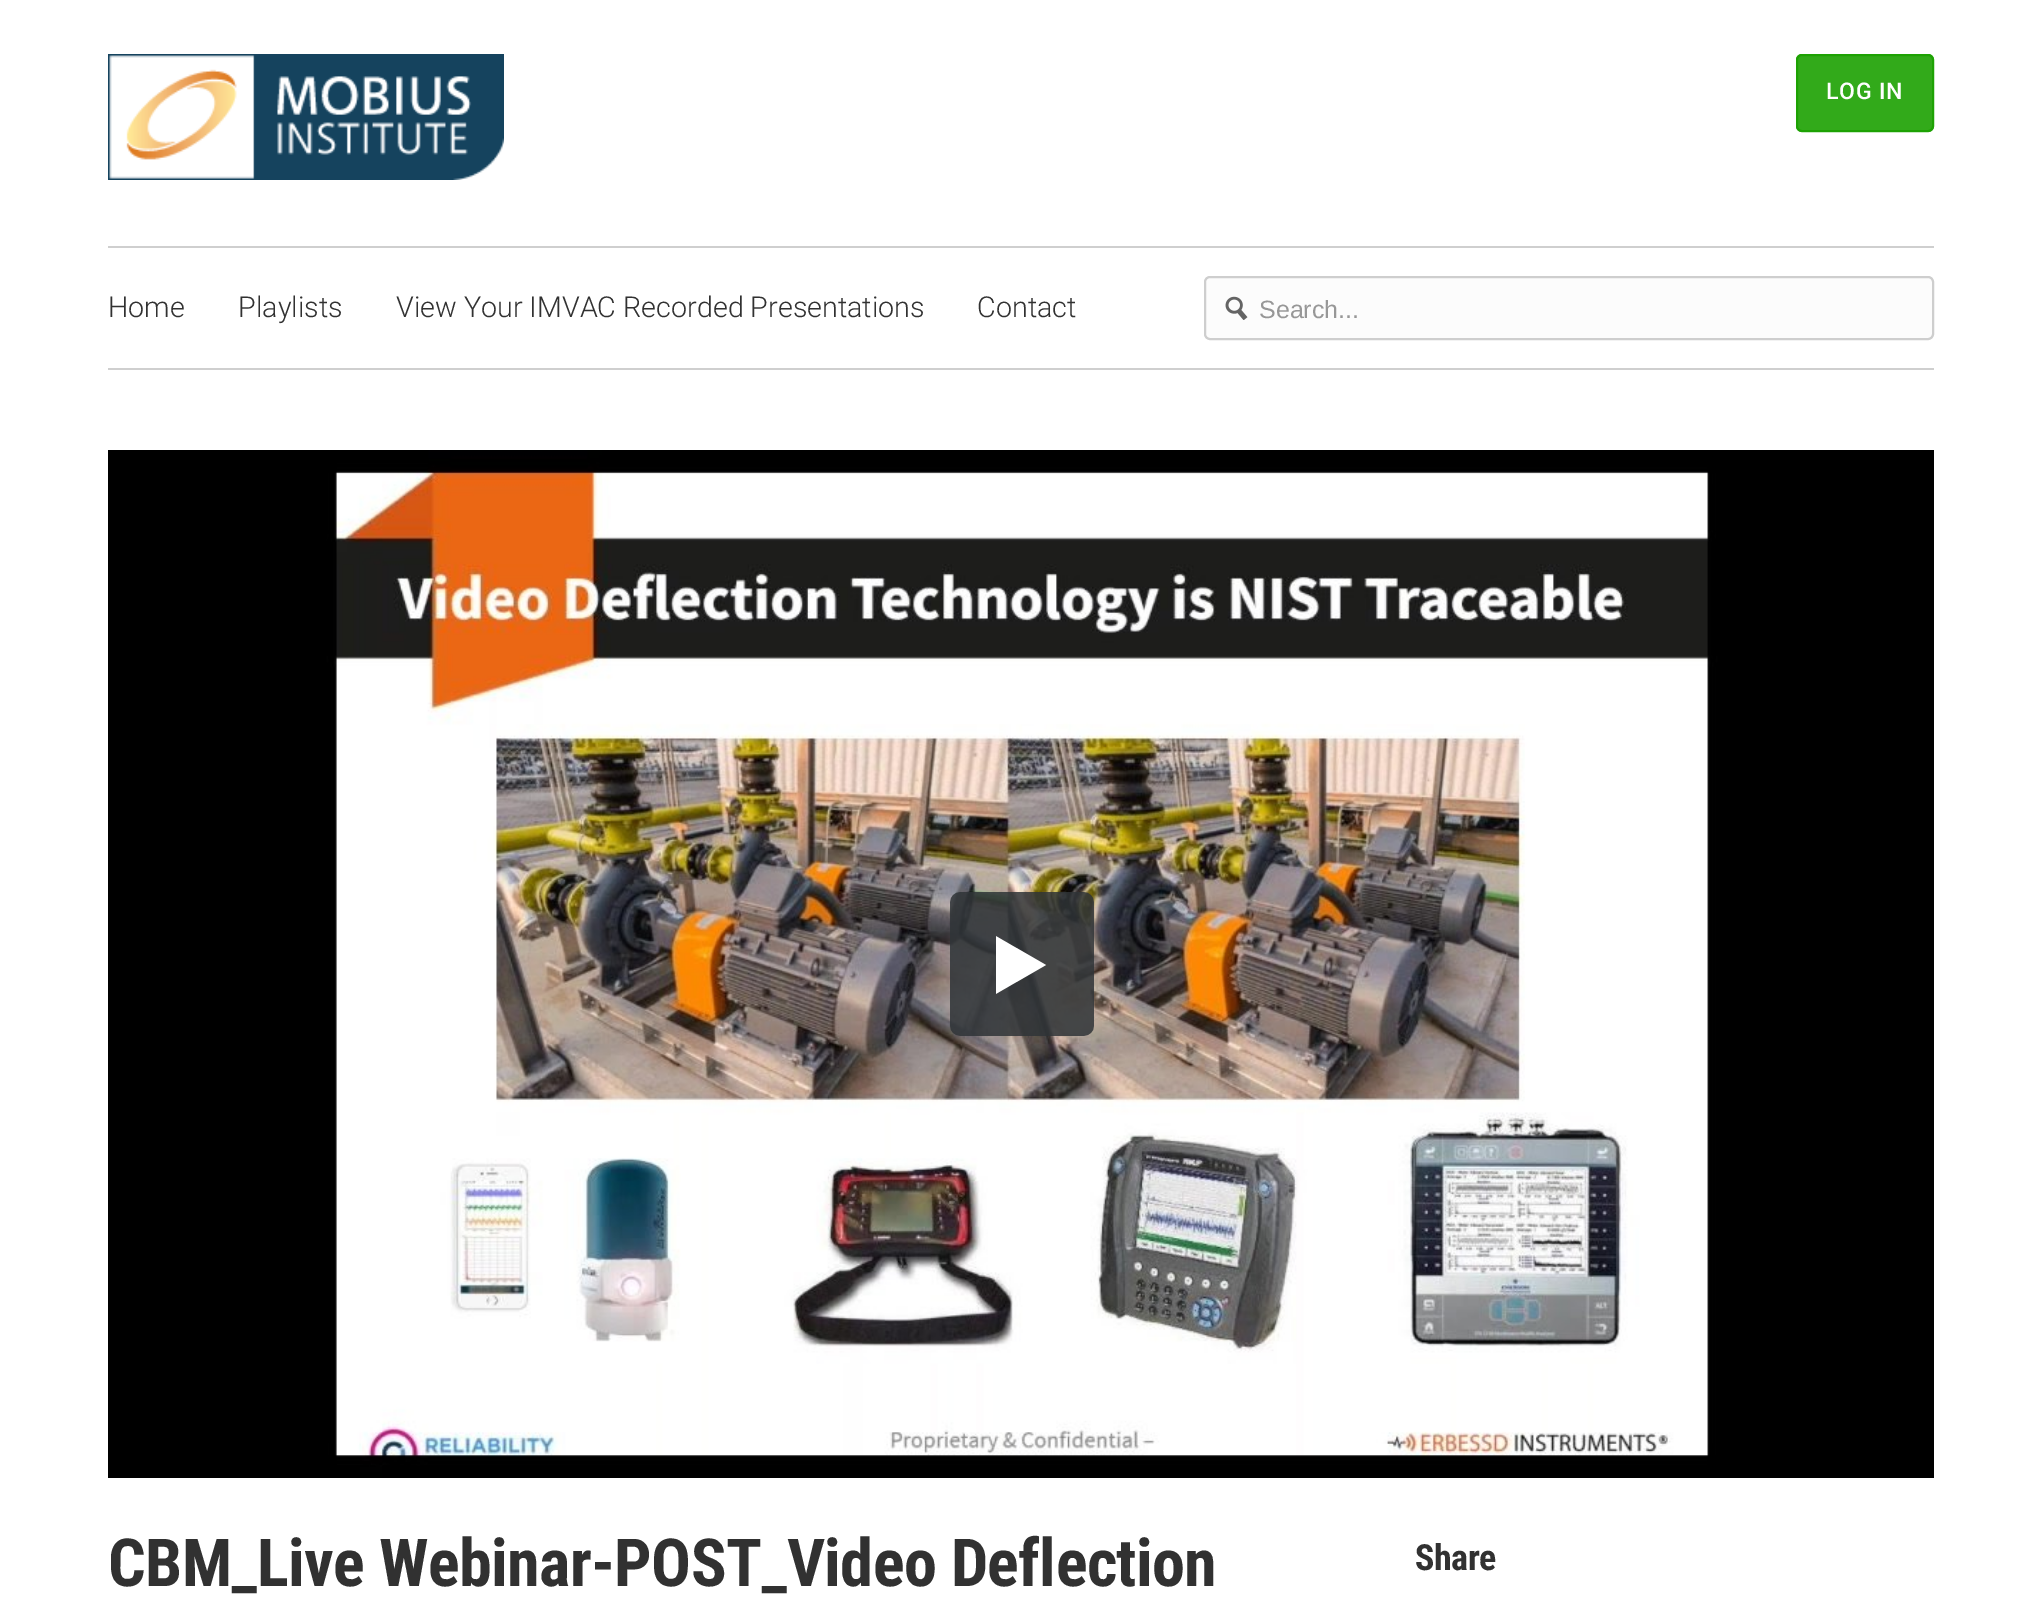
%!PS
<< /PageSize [2042 1598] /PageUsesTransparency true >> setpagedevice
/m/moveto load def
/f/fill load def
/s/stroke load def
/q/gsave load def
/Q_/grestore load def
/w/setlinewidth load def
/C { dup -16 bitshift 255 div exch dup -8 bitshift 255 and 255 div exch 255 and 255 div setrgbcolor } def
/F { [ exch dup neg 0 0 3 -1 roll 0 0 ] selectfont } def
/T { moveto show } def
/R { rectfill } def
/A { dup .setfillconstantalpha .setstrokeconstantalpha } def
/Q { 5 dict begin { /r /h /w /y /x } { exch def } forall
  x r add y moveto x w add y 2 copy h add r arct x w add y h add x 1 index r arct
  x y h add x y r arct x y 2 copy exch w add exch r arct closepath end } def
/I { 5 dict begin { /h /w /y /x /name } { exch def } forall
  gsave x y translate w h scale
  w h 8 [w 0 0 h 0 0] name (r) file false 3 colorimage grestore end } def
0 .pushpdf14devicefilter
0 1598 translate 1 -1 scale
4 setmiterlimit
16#FFFFFF C
0 0 2042 1598 R
(1.rgb) 108 54 396 126 I
16#32AA1A C
1796 54 138 78 6 Q f
0.9 A
16#1BA100 C
2 w
1797 55 136 76 5 Q s
/Roboto-Medium 23 F
1 A
16#FFFFFF C
1826 99 m .75 0 (LOG IN) ashow
16#CFCFCF C
108 246 1826 2 R
108 368 1826 2 R
/Roboto-Light 28.7 F
16#313131 C
(Home) 108 317 T
(Playlists) 238 317 T
(View Your IMVAC Recorded Presentations) 396 317 T
(Contact) 977 317 T
16#FCFCFC C
1205 277 728 62 5 Q q f Q_
16#CECECE C
s
(2.rgb) 1225 296 23 24 I
/LiberationSans-Regular 25 F
16#979797 C
(Search...) 1259 318 T
(3.rgb) 108 450 1826 1028 I
/RobotoCondensed-Bold 66.25 F
16#313131 C
108 1586 m -.65 0 (CBM_Live Webinar-POST_Video Deflection) ashow
/RobotoCondensed-Bold 36 F
1415 1570 m -.5 0 (Share) ashow
.poppdf14devicefilter showpage
